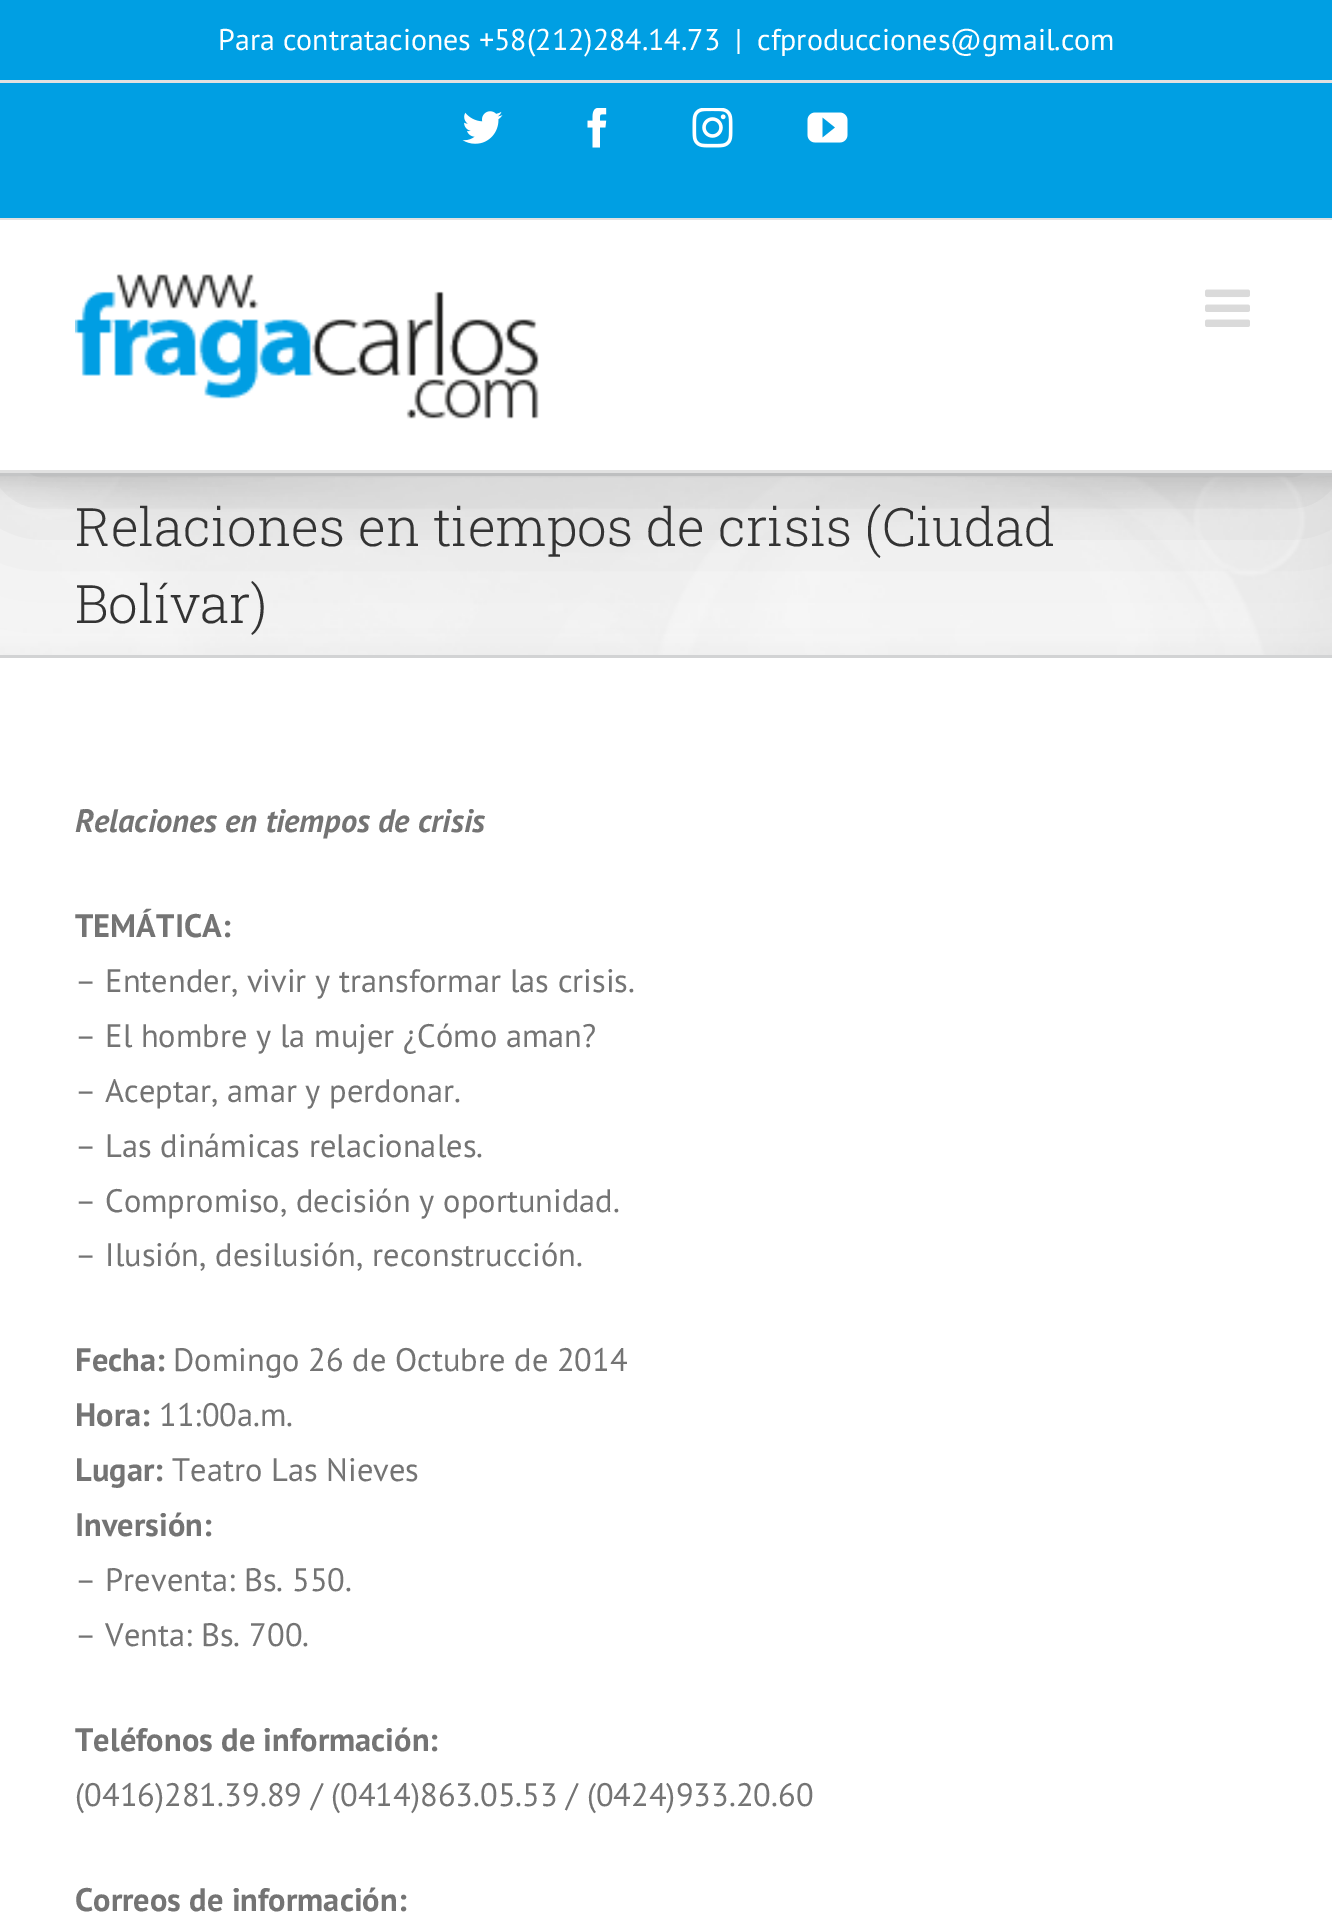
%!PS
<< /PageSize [1332 1929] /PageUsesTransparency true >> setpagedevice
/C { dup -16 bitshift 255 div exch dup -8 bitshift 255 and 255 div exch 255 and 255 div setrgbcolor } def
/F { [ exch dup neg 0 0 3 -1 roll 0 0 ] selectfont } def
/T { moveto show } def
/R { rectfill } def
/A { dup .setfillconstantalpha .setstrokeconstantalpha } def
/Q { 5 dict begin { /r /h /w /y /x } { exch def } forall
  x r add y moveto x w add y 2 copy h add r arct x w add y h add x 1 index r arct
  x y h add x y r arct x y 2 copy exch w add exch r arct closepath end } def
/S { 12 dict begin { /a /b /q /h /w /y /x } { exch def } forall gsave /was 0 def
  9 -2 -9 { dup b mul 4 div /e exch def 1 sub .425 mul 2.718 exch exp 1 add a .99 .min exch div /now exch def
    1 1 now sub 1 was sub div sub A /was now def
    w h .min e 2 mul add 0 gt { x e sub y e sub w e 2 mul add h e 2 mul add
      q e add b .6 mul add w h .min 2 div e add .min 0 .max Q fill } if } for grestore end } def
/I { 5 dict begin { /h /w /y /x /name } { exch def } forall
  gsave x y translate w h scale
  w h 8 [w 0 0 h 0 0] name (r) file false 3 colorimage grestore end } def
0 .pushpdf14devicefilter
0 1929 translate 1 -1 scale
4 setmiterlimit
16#FFFFFF C
0 0 1332 1929 R
16#F6F6F6 C
0 476 1332 179 R
(7.rgb) 0 476 1332 179 I
16#D2D3D4 C
0 473 1332 3 R
0 655 1332 3 R
16#000000 C
5 30 1323 463 0 62.5 .14 S
16#009FE3 C
0 0 1332 218 R
16#E1E1E1 C
0 218 1332 2 R
0 80 1332 3 R
/PTSans-Regular 30 F
16#FFFFFF C
(Para contrataciones +58\(212\)284.14.73) 218 50 T
(|) 735 50 T
(cfproducciones@gmail.com) 757 50 T
(1.rgb) 462 111 41 33 I
(2.rgb) 587 108 20 40 I
(3.rgb) 692 108 41 40 I
(4.rgb) 807 112 41 31 I
0 220 1332 250 R
16#E1E1E1 C
0 470 1332 3 R
(5.rgb) 75 274 464 145 I
(6.rgb) 1205 289 45 38 I
/RobotoSlab-Light 53 F
16#333333 C
(Relaciones en tiempos de crisis \(Ciudad) 75 546 T
(Bolívar\)) 75 623 T
/PTSans-BoldItalic 32.5 F
16#747474 C
(Relaciones en tiempos de crisis) 75 832 T
/PTSans-Bold 32.5 F
(TEMÁTICA:) 75 937 T
/PTSans-Regular 32.5 F
(– Entender, vivir y transformar las crisis.) 75 992 T
(– El hombre y la mujer ¿Cómo aman?) 75 1047 T
(– Aceptar, amar y perdonar.) 75 1102 T
(– Las dinámicas relacionales.) 75 1157 T
(– Compromiso, decisión y oportunidad.) 75 1212 T
(– Ilusión, desilusión, reconstrucción.) 75 1266 T
/PTSans-Bold 32.5 F
(Fecha:) 75 1371 T
/PTSans-Regular 32.5 F
(Domingo 26 de Octubre de 2014) 173 1371 T
/PTSans-Bold 32.5 F
(Hora:) 75 1426 T
/PTSans-Regular 32.5 F
(11:00a.m.) 159 1426 T
/PTSans-Bold 32.5 F
(Lugar:) 75 1481 T
/PTSans-Regular 32.5 F
(Teatro Las Nieves) 172 1481 T
/PTSans-Bold 32.5 F
(Inversión:) 75 1536 T
/PTSans-Regular 32.5 F
(– Preventa: Bs. 550.) 75 1591 T
(– Venta: Bs. 700.) 75 1646 T
/PTSans-Bold 32.5 F
(Teléfonos de información:) 75 1751 T
/PTSans-Regular 32.5 F
(\(0416\)281.39.89 / \(0414\)863.05.53 / \(0424\)933.20.60) 75 1806 T
/PTSans-Bold 32.5 F
(Correos de información:) 75 1911 T
.poppdf14devicefilter showpage
